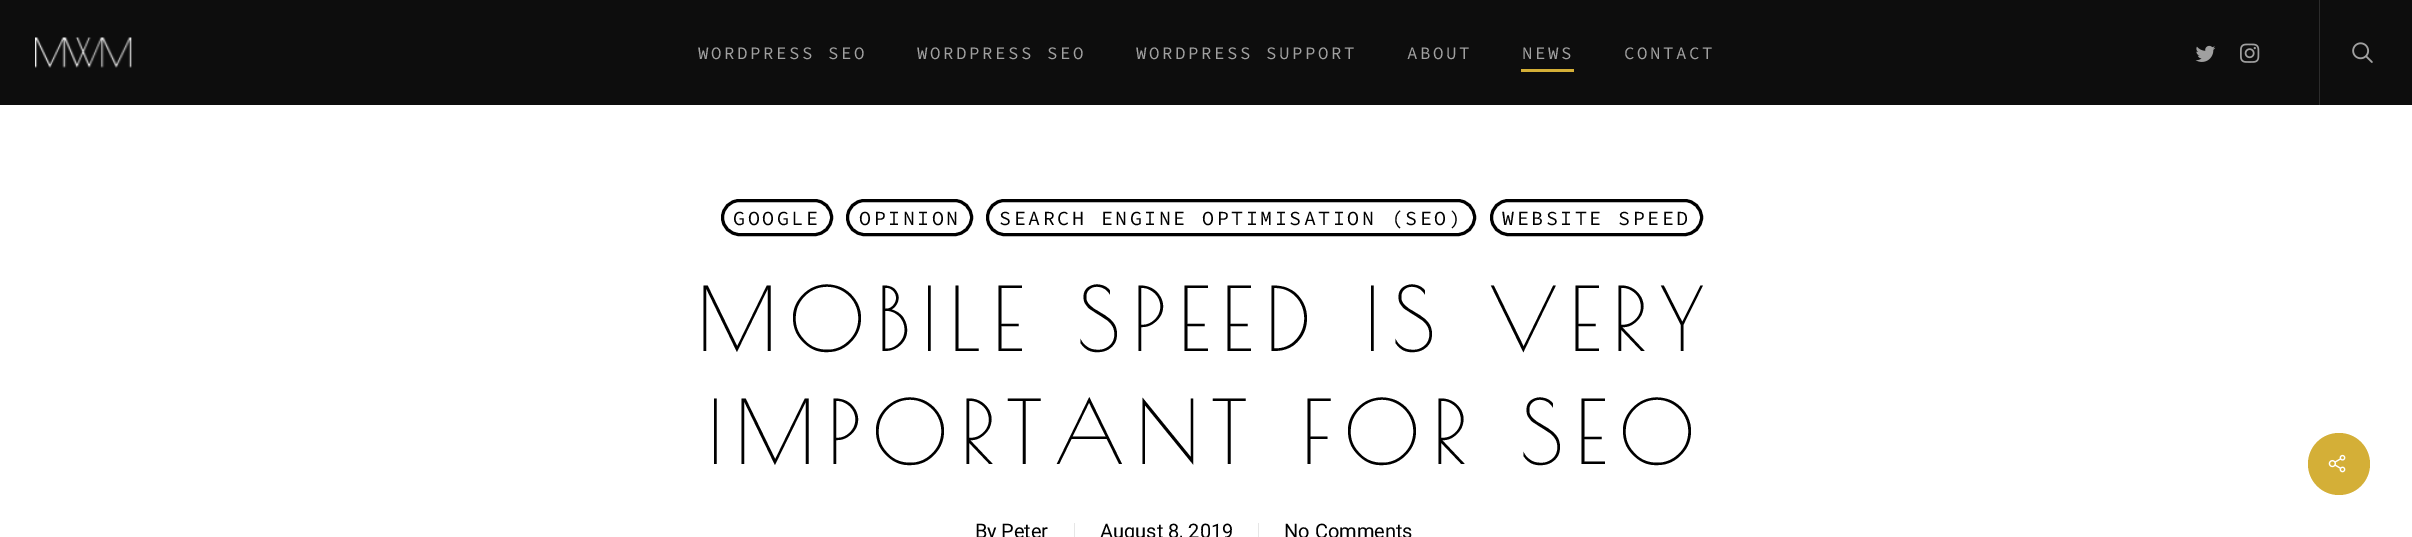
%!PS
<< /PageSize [2412 537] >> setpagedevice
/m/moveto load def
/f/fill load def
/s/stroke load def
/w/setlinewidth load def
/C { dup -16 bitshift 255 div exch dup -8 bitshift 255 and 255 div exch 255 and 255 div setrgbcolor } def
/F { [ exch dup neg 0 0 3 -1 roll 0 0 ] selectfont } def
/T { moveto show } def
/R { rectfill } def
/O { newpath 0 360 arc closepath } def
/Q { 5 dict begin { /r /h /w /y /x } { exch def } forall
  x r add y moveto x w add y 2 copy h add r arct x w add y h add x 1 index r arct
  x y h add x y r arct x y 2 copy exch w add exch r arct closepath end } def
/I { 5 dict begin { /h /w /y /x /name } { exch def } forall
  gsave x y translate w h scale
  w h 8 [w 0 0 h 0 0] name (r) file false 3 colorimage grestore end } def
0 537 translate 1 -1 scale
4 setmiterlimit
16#FFFFFF C
0 0 2412 537 R
16#0D0D0D C
0 0 2412 105 R
(1.rgb) 35 37 97 31 I
/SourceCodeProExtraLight-ExtraLight 17.5 F
16#A0A0A0 C
698 59 m 2.5 0 (WORDPRESS SEO) ashow
917 59 m 2.5 0 (WORDPRESS SEO) ashow
1136 59 m 2.5 0 (WORDPRESS SUPPORT) ashow
1407 59 m 2.5 0 (ABOUT) ashow
1522 59 m 2.5 0 (NEWS) ashow
16#D4AF37 C
1521 69 53 3 R
16#A0A0A0 C
1624 59 m 2.5 0 (CONTACT) ashow
(2.rgb) 2195 45 21 17 I
(3.rgb) 2240 43 20 20 I
16#2C2C2C C
2319 0 1 105 R
(4.rgb) 2352 42 21 21 I
16#000000 C
3 w
722.5 200.5 109 34 17 Q s
/SourceCodeProExtraLight-ExtraLight 20 F
733 225 m 2.5 0 (GOOGLE) ashow
847.5 200.5 124 34 17 Q s
859 225 m 2.5 0 (OPINION) ashow
987.5 200.5 487 34 17 Q s
999 225 m 2.5 0 (SEARCH ENGINE OPTIMISATION \(SEO\)) ashow
1491.5 200.5 210 34 17 Q s
1502 225 m 2.5 0 (WEBSITE SPEED) ashow
/PoiretOne-Regular 87.5 F
697 351 m 11.25 0 (MOBILE SPEED IS VERY) ashow
707 464 m 11.25 0 (IMPORTANT FOR SEO) ashow
/Roboto-Regular 20 F
(By) 975 538 T
(Peter) 1001 538 T
16#E6E6E6 C
1074 523 1 14 R
16#000000 C
(August 8, 2019) 1100 538 T
16#E6E6E6 C
1258 523 1 14 R
16#000000 C
(No Comments) 1284 538 T
16#D4AF37 C
2339 464 31 O f
(5.rgb) 2328 454 18 19 I
showpage
